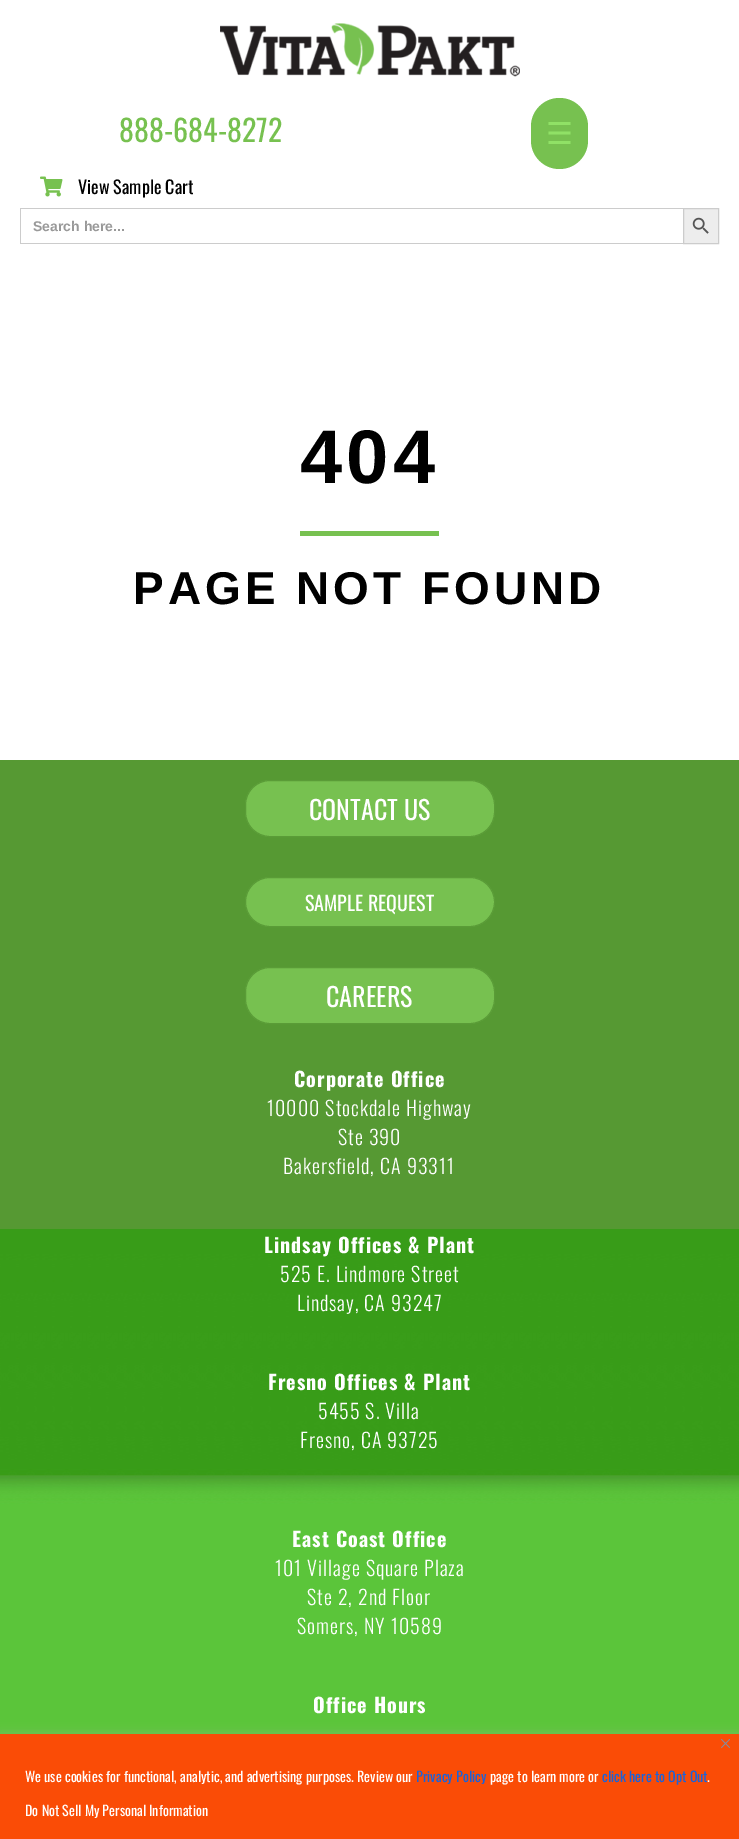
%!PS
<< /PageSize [739 1839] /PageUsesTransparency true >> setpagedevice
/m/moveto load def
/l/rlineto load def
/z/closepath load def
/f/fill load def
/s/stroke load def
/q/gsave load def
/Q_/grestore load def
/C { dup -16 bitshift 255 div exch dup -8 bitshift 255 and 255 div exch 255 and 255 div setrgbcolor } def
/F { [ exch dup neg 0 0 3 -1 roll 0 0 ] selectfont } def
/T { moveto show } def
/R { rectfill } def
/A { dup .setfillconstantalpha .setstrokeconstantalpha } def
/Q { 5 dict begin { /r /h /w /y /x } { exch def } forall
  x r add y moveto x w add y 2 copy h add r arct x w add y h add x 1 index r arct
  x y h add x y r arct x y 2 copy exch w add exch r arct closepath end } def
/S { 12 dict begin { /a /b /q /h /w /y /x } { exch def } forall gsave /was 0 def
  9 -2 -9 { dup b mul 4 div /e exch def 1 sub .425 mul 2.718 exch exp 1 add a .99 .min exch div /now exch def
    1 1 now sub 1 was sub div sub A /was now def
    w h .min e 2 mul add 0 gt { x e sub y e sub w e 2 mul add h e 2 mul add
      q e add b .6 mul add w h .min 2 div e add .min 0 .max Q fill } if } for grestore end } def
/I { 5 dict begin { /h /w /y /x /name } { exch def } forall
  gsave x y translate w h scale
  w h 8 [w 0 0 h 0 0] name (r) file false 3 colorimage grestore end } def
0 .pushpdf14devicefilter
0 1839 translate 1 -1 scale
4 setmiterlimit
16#FFFFFF C
0 0 739 1839 R
(1.rgb) 220 23 300 54 I
/Oswald-Regular 30 F
16#77C150 C
(888-684-8272) 119 142 T
531 98 57 71 28.5 Q f
/DejaVuSans-Regular 30 F
16#90E166 C
(☰) 546 144 T
(2.rgb) 40 176 23 21 I
/Oswald-Regular 18 F
16#000000 C
(View Sample Cart) 78 194 T
16#CCCCCC C
20 208 663 1 R
20 243 663 1 R
20 208 1 36 R
/LiberationSans-Bold 14 F
16#999999 C
(Search here...) 33 231 T
16#EDEDED C
683.5 208.5 m 35 0 l 0 35 l -35 0 l z q f Q_
16#CCCCCC C
s
(3.rgb) 692 217 17 17 I
/LiberationSans-Bold 76 F
16#000000 C
300 483 m 4 0 (404) ashow
16#77C150 C
300 531 139 5 R
/LiberationSans-Bold 46 F
16#000000 C
133 604 m 4 0 (PAGE NOT FOUND) ashow
16#569933 C
0 760 739 469 R
(4.rgb) 0 1229 739 275 I
16#77C150 C
245.5 780.5 249 56 24.5 Q q f Q_
16#5A9C37 C
s
/Oswald-Regular 26 F
16#FFFFFF C
(CONTACT US) 309 820 T
16#77C150 C
245.5 877.5 249 49 24.5 Q q f Q_
16#5A9C37 C
s
/Oswald-Regular 20 F
16#FFFFFF C
(SAMPLE REQUEST) 305 911 T
16#77C150 C
245.5 967.5 249 56 24.5 Q q f Q_
16#5A9C37 C
s
/Oswald-Regular 26 F
16#FFFFFF C
(CAREERS) 326 1007 T
/Oswald-Bold 20 F
294 1087 m 1 0 (Corporate Office) ashow
/Oswald-Light 20 F
267 1116 m 1 0 (10000 Stockdale Highway) ashow
338 1145 m 1 0 (Ste 390) ashow
283 1174 m 1 0 (Bakersfield, CA 93311) ashow
/Oswald-Bold 20 F
264 1253 m 1 0 (Lindsay Offices & Plant) ashow
/Oswald-Light 20 F
280 1282 m 1 0 (525 E. Lindmore Street) ashow
297 1311 m 1 0 (Lindsay, CA 93247) ashow
/Oswald-Bold 20 F
268 1390 m 1 0 (Fresno Offices & Plant) ashow
/Oswald-Light 20 F
318 1419 m 1 0 (5455 S. Villa) ashow
300 1448 m 1 0 (Fresno, CA 93725) ashow
16#5BC53A C
0 1504 739 230 R
/Oswald-Bold 20 F
16#FFFFFF C
292 1547 m 1 0 (East Coast Office) ashow
/Oswald-Light 20 F
275 1576 m 1 0 (101 Village Square Plaza) ashow
307 1605 m 1 0 (Ste 2, 2nd Floor) ashow
297 1634 m 1 0 (Somers, NY 10589) ashow
/Oswald-Bold 20 F
313 1713 m 1 0 (Office Hours) ashow
16#ACABAB C
0 1733 739 105 0 5 .3 S
16#FA4C06 C
0 1734 739 105 R
(5.rgb) 721 1739 9 9 I
/Oswald-Regular 14 F
16#FFFFFF C
(We use cookies for functional, analytic, and advertising purposes. Review our) 25 1782 T
16#1863DC C
(Privacy Policy) 416 1782 T
16#FFFFFF C
(page to learn more or) 490 1782 T
16#1863DC C
(click here to Opt Out) 602 1782 T
16#FFFFFF C
(.) 707 1782 T
(Do Not Sell My Personal Information) 25 1816 T
.poppdf14devicefilter showpage
